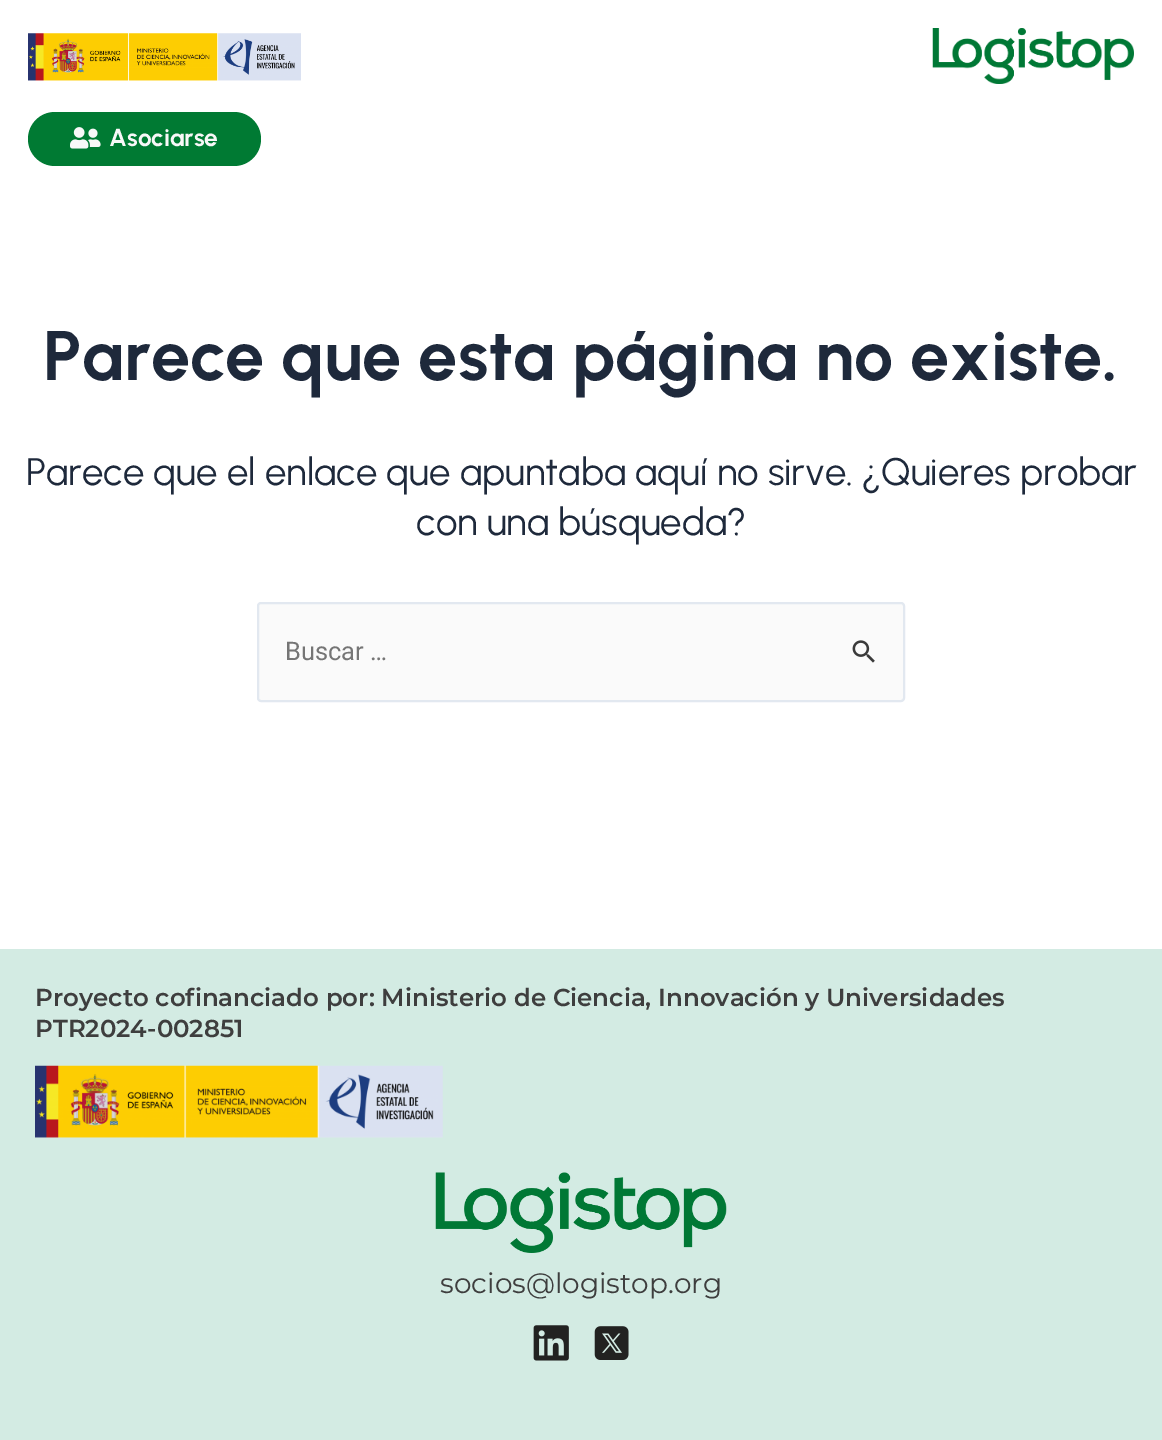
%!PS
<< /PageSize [1162 1440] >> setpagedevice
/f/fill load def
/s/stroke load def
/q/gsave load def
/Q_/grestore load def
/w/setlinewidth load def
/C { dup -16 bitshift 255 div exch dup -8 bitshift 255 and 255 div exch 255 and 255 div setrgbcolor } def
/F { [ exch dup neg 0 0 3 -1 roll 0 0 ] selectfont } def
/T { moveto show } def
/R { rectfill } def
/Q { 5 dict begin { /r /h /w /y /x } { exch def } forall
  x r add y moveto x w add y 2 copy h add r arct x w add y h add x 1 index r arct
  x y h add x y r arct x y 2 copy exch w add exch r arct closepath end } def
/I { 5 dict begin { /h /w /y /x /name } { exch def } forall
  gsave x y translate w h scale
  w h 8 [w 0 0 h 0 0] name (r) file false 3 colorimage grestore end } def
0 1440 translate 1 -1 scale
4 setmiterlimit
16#FFFFFF C
0 0 1162 1440 R
(1.rgb) 28 33 273 48 I
(2.rgb) 932 28 202 56 I
16#007A33 C
28 112 233 54 27 Q f
(3.rgb) 70 127 31 22 I
/Urbanist-Bold 24.5 F
16#F8F8F8 C
(Asociarse) 109 146 T
/Urbanist-Bold 70 F
16#1E293B C
(Parece que esta página no existe.) 43 380 T
/Urbanist-Regular 38.3 F
(Parece que el enlace que apuntaba aquí no sirve. ¿Quieres probar) 26 485 T
(con una búsqueda?) 416 535 T
16#FAFAFA C
258 603 646 98 3 Q q f Q_
16#E2E8F0 C
2 w
s
/Roboto-Regular 25.5 F
16#757575 C
(Buscar …) 285 660 T
(4.rgb) 852 640 23 23 I
16#D3EBE3 C
0 949 1162 491 R
/Montserrat-SemiBold 24.5 F
16#3E3E3E C
(Proyecto cofinanciado por: Ministerio de Ciencia, Innovación y Universidades) 35 1006 T
(PTR2024-002851) 35 1037 T
(5.rgb) 35 1065 408 73 I
(6.rgb) 435 1172 292 81 I
/Montserrat-Regular 28 F
(socios@logistop.org) 440 1293 T
(7.rgb) 533 1325 36 36 I
(8.rgb) 594 1326 35 34 I
showpage
